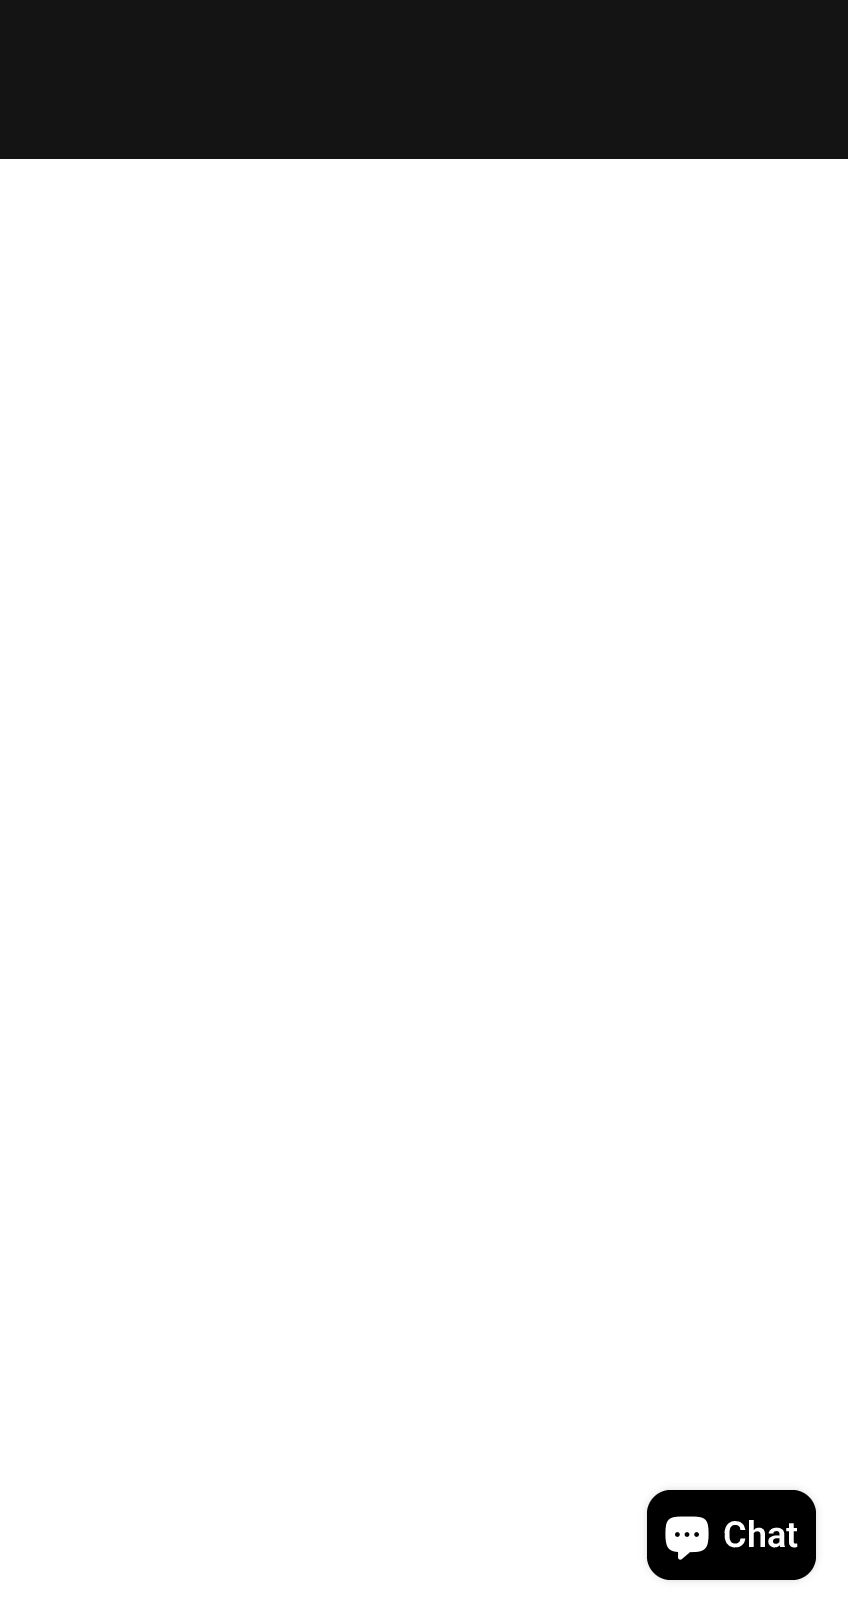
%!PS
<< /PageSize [848 1611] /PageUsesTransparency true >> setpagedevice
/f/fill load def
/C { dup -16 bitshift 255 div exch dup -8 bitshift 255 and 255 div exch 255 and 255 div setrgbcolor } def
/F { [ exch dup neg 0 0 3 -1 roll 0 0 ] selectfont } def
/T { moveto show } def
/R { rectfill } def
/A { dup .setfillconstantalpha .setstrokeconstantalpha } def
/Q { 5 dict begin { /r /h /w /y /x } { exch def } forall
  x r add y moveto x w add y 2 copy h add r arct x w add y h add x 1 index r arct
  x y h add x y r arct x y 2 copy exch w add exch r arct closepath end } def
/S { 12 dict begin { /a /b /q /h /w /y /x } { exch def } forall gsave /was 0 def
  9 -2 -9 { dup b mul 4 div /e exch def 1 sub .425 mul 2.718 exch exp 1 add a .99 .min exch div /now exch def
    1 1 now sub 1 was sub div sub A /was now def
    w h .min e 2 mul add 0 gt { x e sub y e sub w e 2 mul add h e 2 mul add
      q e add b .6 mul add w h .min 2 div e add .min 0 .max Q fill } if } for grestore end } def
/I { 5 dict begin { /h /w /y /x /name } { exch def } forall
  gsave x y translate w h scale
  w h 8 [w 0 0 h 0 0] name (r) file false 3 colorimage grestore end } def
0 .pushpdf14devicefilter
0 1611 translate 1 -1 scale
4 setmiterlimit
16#FFFFFF C
0 0 848 1611 R
16#141414 C
0 0 848 159 R
16#000000 C
647 1490 169 90 24 4 .15 S
647 1490 169 90 24 Q f
(1.rgb) 665 1516 44 44 I
/Roboto-SemiBold 36 F
16#FFFFFF C
(Chat) 723 1547 T
.poppdf14devicefilter showpage
